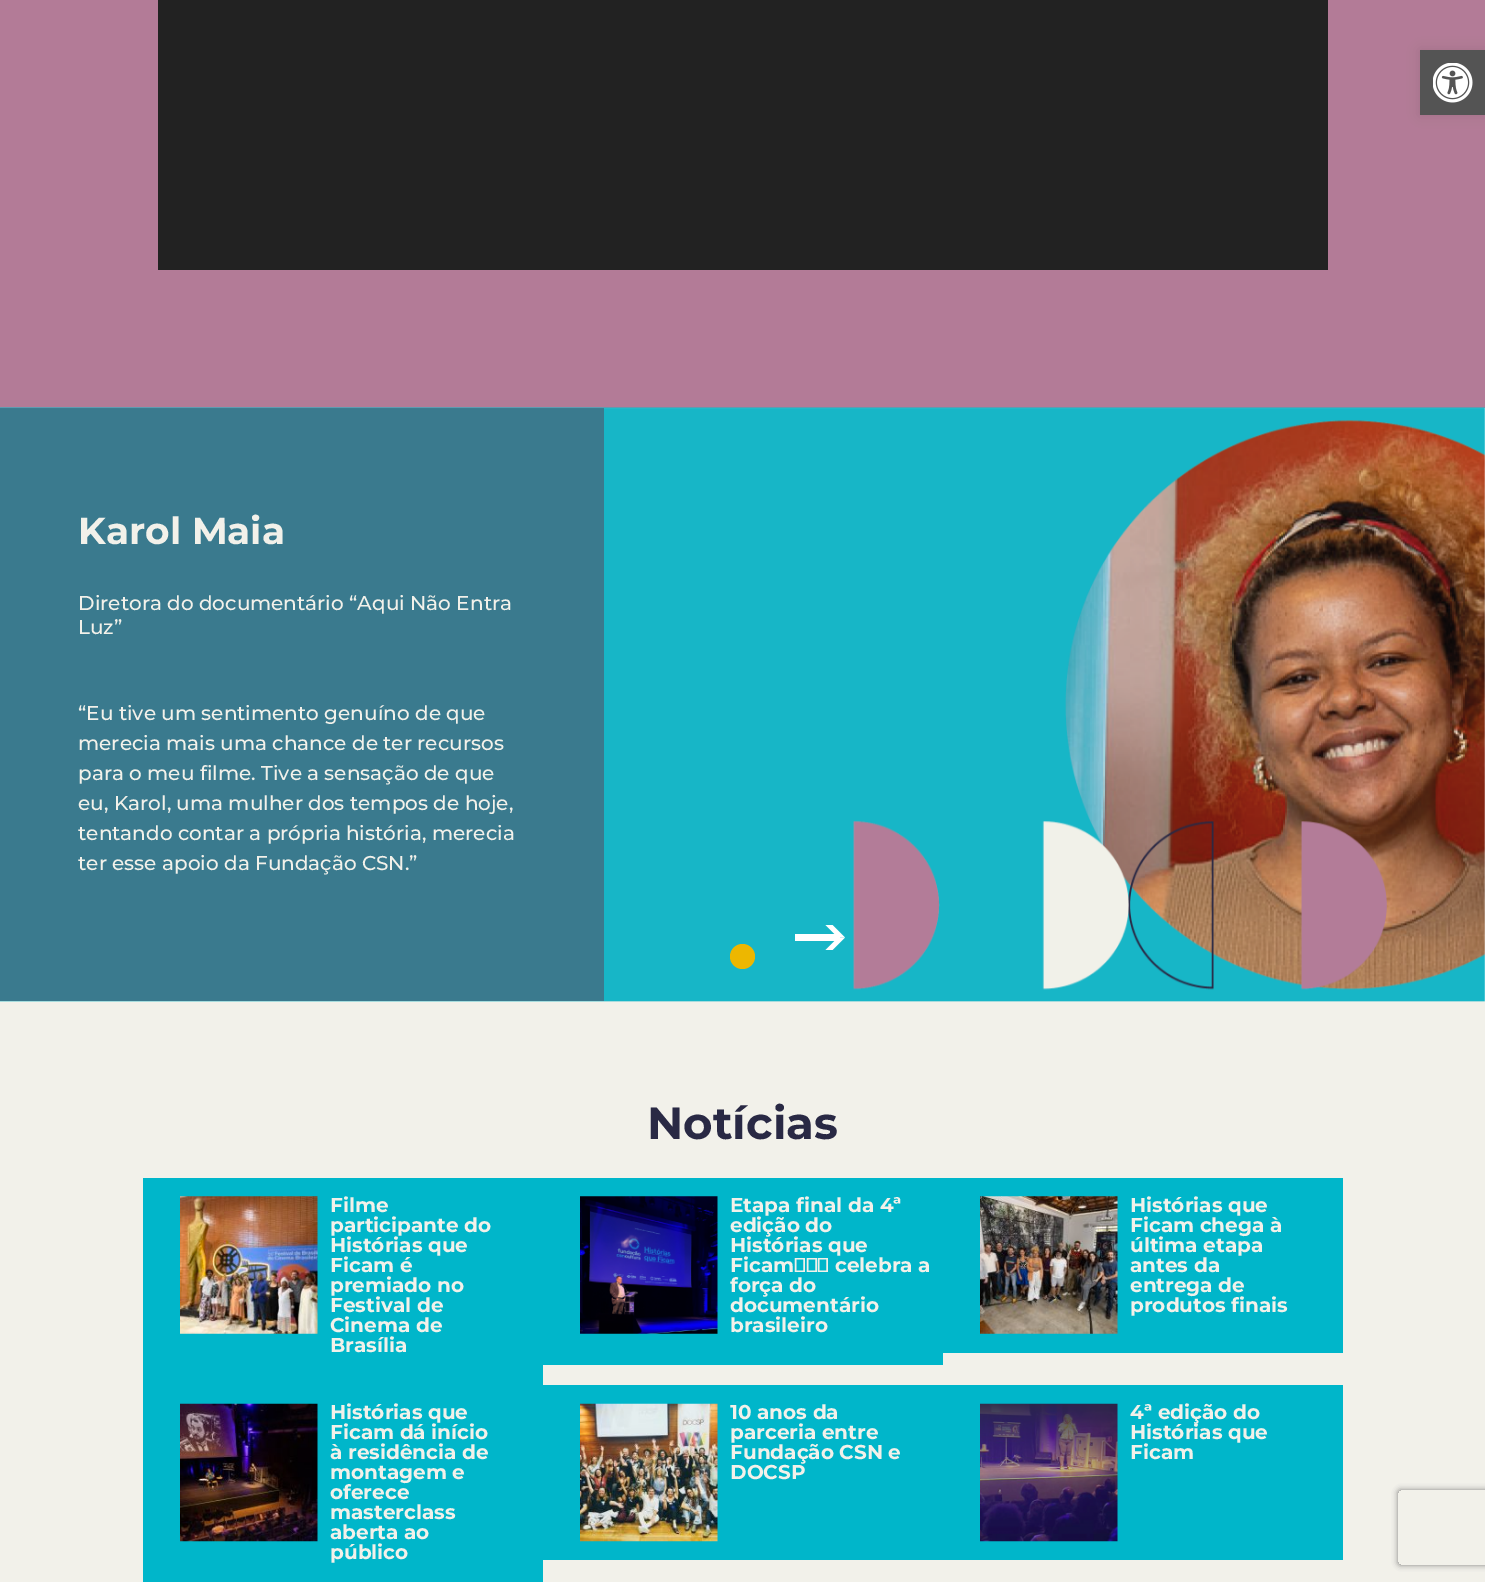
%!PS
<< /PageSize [1485 1582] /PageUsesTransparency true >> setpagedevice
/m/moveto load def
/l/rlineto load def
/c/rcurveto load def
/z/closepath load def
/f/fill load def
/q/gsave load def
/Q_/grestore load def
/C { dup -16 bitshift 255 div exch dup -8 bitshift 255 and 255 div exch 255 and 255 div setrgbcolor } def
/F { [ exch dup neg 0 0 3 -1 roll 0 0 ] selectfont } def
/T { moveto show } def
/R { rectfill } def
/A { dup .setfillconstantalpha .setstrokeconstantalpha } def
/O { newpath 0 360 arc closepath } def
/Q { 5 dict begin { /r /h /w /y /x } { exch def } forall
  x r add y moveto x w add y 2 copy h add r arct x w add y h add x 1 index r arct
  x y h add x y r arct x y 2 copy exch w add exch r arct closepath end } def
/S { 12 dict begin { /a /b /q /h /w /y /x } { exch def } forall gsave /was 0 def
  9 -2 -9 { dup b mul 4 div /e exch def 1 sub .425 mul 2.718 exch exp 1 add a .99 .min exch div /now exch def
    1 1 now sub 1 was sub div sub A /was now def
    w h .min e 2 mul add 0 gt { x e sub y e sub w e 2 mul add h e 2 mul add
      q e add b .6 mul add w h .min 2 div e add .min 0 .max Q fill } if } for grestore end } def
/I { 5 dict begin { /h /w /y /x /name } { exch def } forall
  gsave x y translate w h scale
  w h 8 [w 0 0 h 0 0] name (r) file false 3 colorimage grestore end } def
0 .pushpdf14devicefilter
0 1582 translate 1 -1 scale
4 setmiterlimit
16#FFFFFF C
0 0 1485 1582 R
16#B37B97 C
0 0 1485 408 R
16#222222 C
158 0 1170 270 R
16#000000 C
1420 50 65 65 0 6 .1 S
16#545454 C
1420 50 65 65 R
(1.rgb) 1433 63 40 40 I
16#F2F1EA C
0 1001 1485 581 R
(2.rgb) 0 407 1485 595 I
0.6 A
16#525268 C
0 408 604 593 R
/Montserrat-Bold 37.5 F
1 A
16#F2F1EA C
(Karol Maia) 78 544 T
/Montserrat-Medium 20 F
(Diretora do documentário “Aqui Não Entra) 78 610 T
(Luz”) 78 634 T
(“Eu tive um sentimento genuíno de que) 78 720 T
(merecia mais uma chance de ter recursos) 78 750 T
(para o meu filme. Tive a sensação de que) 78 780 T
(eu, Karol, uma mulher dos tempos de hoje,) 78 810 T
(tentando contar a própria história, merecia) 78 840 T
(ter esse apoio da Fundação CSN.”) 78 870 T
16#FFFFFF C
832.5 925 m -7 0 l 12.5 12.5 l 7 0 l z f
832.5 950 m -7 0 l 12.5 -12.5 l 7 0 l z f
795 934 45 7 R
16#EDB700 C
742.5 956.5 12.5 O f
/Montserrat-Bold 45 F
16#292944 C
(Notícias) 647 1139 T
16#00B6CA C
143 1178 400 404 R
(3.rgb) 180 1196 138 138 I
/Montserrat-Bold 20 F
16#F2F1EA C
(Filme) 330 1212 T
(participante do) 330 1232 T
(Histórias que) 330 1252 T
(Ficam é) 330 1272 T
(premiado no) 330 1292 T
(Festival de) 330 1312 T
(Cinema de) 330 1332 T
(Brasília) 330 1352 T
16#00B6CA C
543 1178 400 187 R
(4.rgb) 580 1196 138 138 I
16#F2F1EA C
(Etapa final da 4ª) 730 1212 T
(edição do) 730 1232 T
(Histórias que) 730 1252 T
(Ficam  celebra a) 730 1272 T
(força do) 730 1292 T
(documentário) 730 1312 T
(brasileiro) 730 1332 T
16#00B6CA C
943 1178 400 175 R
(5.rgb) 980 1196 138 138 I
16#F2F1EA C
(Histórias que) 1130 1212 T
(Ficam chega à) 1130 1232 T
(última etapa) 1130 1252 T
(antes da) 1130 1272 T
(entrega de) 1130 1292 T
(produtos finais) 1130 1312 T
(6.rgb) 180 1403 138 139 I
(Histórias que) 330 1419 T
(Ficam dá início) 330 1439 T
(à residência de) 330 1459 T
(montagem e) 330 1479 T
(oferece) 330 1499 T
(masterclass) 330 1519 T
(aberta ao) 330 1539 T
(público) 330 1559 T
16#00B6CA C
543 1385 800 175 R
(7.rgb) 580 1403 138 139 I
16#F2F1EA C
(10 anos da) 730 1419 T
(parceria entre) 730 1439 T
(Fundação CSN e) 730 1459 T
(DOCSP) 730 1479 T
(8.rgb) 980 1403 138 139 I
(4ª edição do) 1130 1419 T
(Histórias que) 1130 1439 T
(Ficam) 1130 1459 T
q
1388 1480 m 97 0 l 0 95 l -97 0 l z 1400.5 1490 m 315 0 l 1.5 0 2.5 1 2.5 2.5 c 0 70 l 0 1.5 -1 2.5 -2.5 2.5 c -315 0 l -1.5 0 -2.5 -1 -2.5 -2.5 c 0 -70 l 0 -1.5 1 -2.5 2.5 -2.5 c z eoclip newpath
16#808080 C
1398 1490 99 75 2.5 3 1 S
Q_
.poppdf14devicefilter showpage
